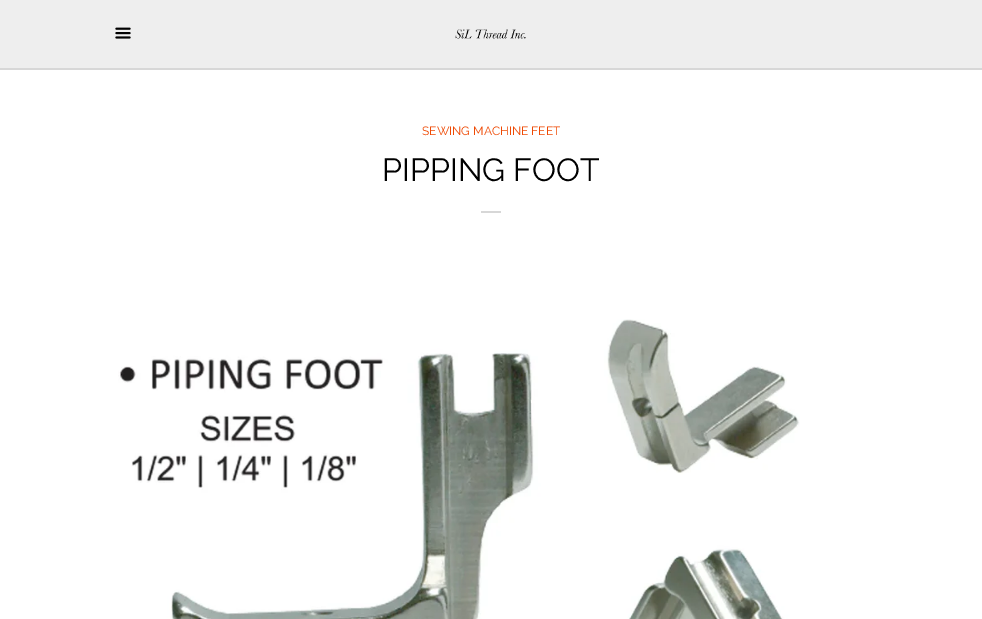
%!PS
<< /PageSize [982 619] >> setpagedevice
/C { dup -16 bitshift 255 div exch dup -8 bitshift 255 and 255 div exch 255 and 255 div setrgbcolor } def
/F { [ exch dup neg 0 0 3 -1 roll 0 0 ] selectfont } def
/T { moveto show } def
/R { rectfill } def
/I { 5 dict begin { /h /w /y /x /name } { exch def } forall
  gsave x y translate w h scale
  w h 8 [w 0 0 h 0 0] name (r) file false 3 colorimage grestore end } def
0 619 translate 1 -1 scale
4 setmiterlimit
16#EEEEEE C
0 0 982 619 R
16#D7D7D7 C
0 68 982 2 R
(1.rgb) 115 27 16 12 I
(2.rgb) 455 29 71 10 I
16#FFFFFF C
0 70 982 549 R
/Raleway-Thin 12 F
16#EF4903 C
(SEWING MACHINE FEET) 422 135 T
/Raleway-Thin 32 F
16#000000 C
(PIPPING FOOT) 382 181 T
16#D7D7D7 C
481 211 20 2 R
(3.rgb) 118 319 682 300 I
showpage
